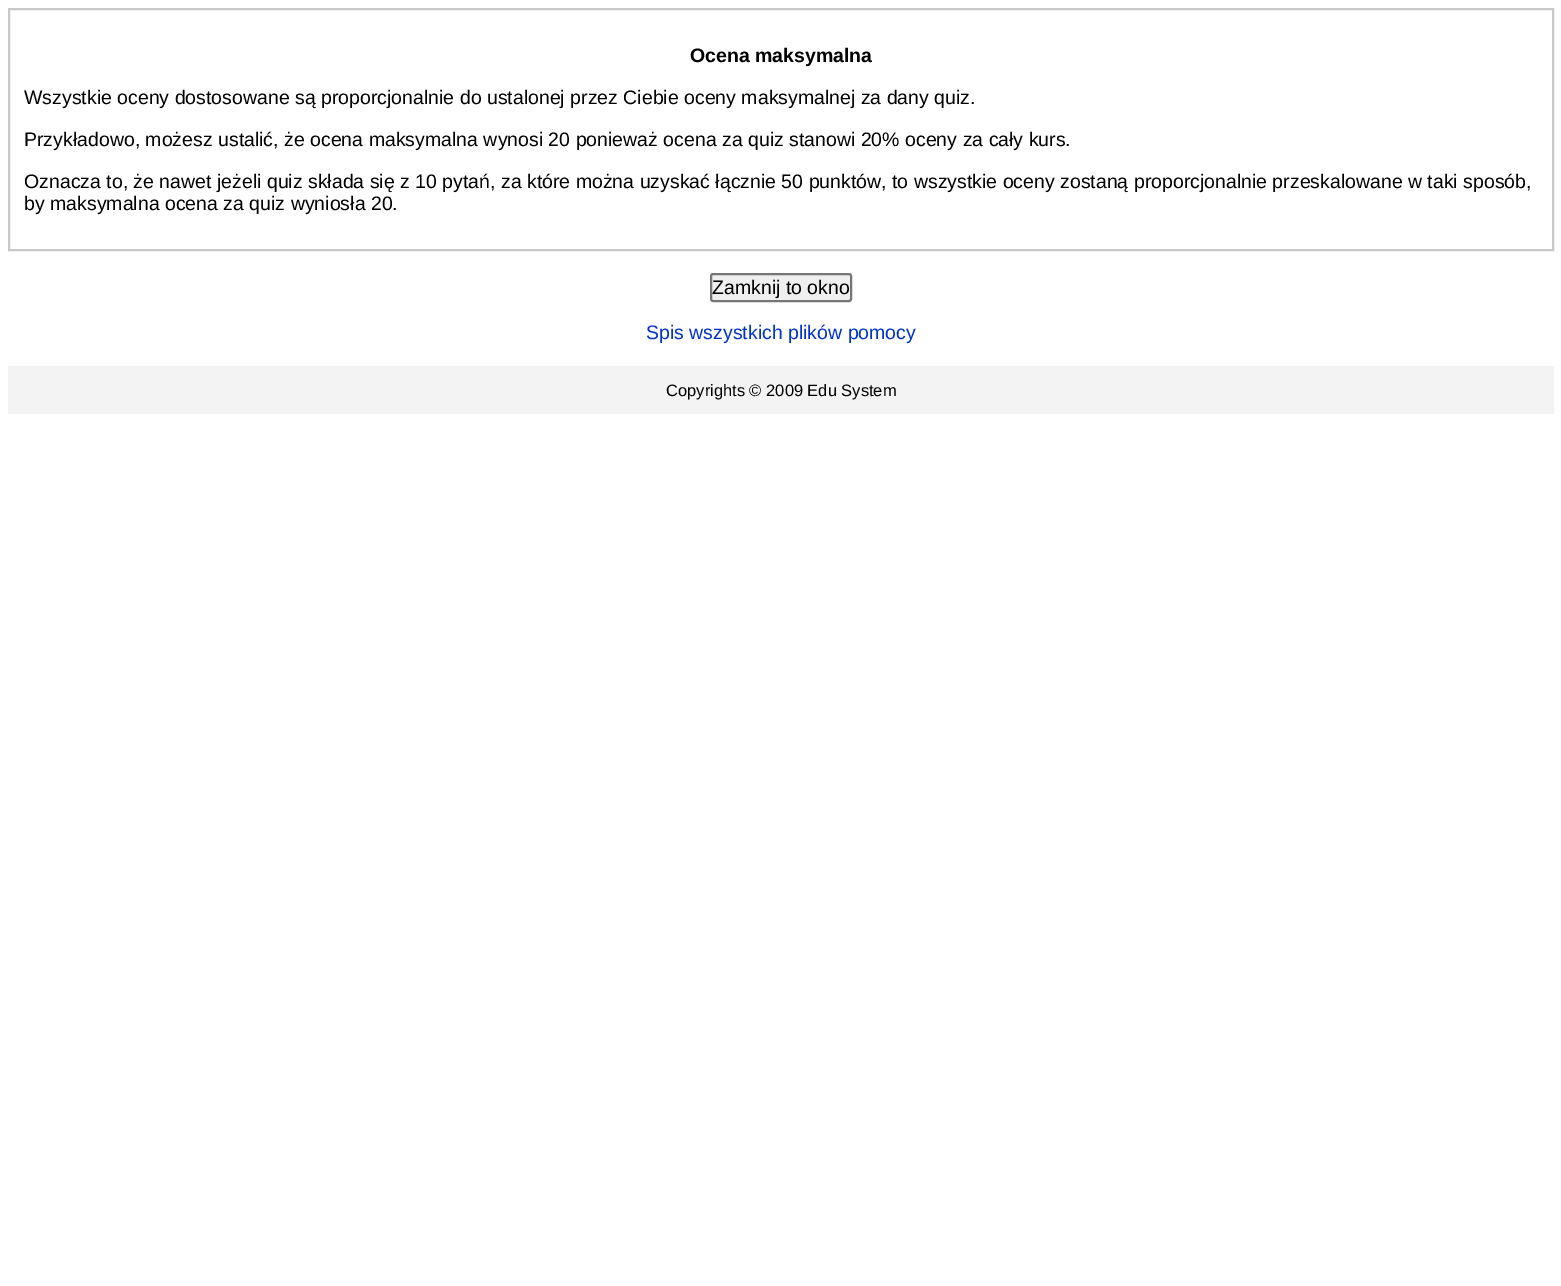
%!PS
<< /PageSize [1561 1286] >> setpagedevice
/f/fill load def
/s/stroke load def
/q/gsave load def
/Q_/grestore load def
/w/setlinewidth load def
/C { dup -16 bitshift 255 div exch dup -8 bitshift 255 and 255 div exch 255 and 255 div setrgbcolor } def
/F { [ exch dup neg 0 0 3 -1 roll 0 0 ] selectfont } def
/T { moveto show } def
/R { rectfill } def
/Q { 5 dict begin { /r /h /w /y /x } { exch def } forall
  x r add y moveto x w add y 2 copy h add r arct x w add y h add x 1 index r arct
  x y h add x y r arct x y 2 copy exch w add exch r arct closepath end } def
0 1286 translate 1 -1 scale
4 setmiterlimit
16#FFFFFF C
0 0 1561 1286 R
16#C8C8C8 C
2 w
9 9 1544 241 rectstroke
/LiberationSans-Bold 19.5 F
16#000000 C
(Ocena maksymalna) 690 62 T
/LiberationSans-Regular 19.5 F
(Wszystkie oceny dostosowane są proporcjonalnie do ustalonej przez Ciebie oceny maksymalnej za dany quiz.) 24 104 T
(Przykładowo, możesz ustalić, że ocena maksymalna wynosi 20 ponieważ ocena za quiz stanowi 20% oceny za cały kurs.) 24 146 T
(Oznacza to, że nawet jeżeli quiz składa się z 10 pytań, za które można uzyskać łącznie 50 punktów, to wszystkie oceny zostaną proporcjonalnie przeskalowane w taki sposób,) 24 188 T
(by maksymalna ocena za quiz wyniosła 20.) 24 210 T
16#EFEFEF C
711 274 140 27 2 Q q f Q_
16#767676 C
s
16#000000 C
(Zamknij to okno) 712 294 T
16#0033CC C
(Spis wszystkich plików pomocy) 646 339 T
16#F3F3F3 C
8 366 1546 48 R
/LiberationSans-Regular 16.5 F
16#000000 C
(Copyrights © 2009 Edu System) 666 396 T
showpage
